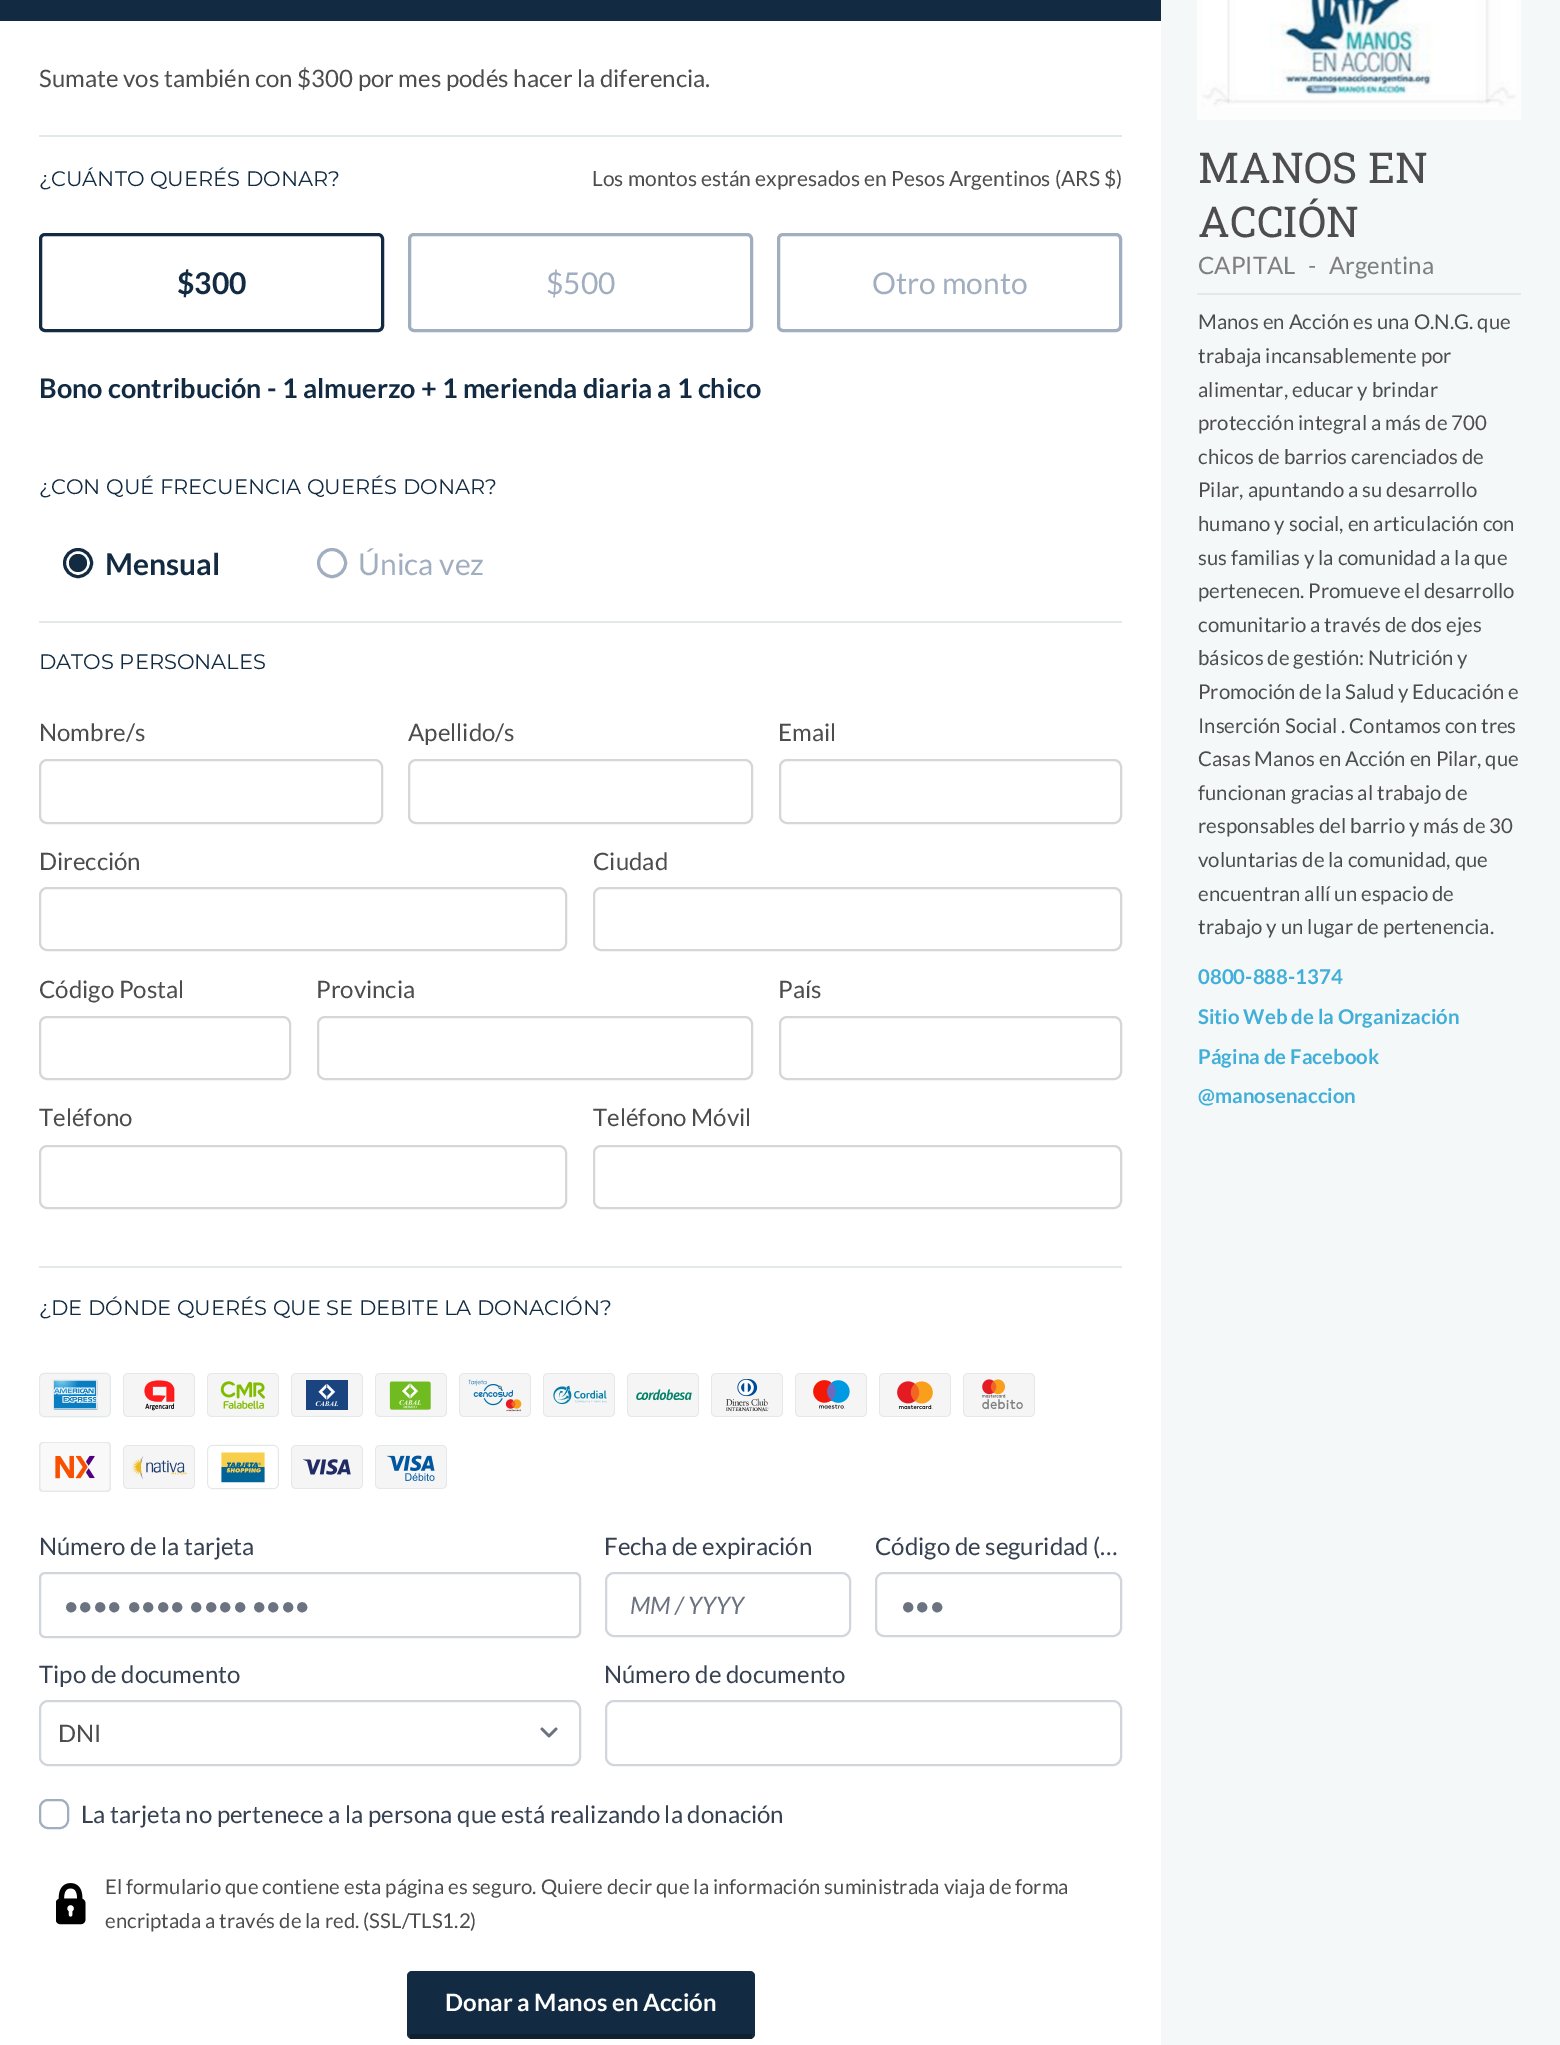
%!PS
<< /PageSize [1560 2045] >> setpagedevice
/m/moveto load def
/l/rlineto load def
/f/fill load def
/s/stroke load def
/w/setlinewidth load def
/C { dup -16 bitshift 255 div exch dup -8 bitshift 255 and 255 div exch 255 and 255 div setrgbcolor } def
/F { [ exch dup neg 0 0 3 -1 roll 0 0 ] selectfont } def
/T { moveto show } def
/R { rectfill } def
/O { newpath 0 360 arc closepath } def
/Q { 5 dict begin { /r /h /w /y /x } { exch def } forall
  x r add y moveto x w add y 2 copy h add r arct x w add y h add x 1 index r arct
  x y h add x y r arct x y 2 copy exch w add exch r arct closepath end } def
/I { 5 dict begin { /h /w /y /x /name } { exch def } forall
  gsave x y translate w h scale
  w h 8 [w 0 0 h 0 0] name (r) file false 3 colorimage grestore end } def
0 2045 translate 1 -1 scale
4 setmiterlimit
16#F4F8F9 C
0 0 1560 2045 R
16#122B42 C
0 0 1161 21 R
16#FFFFFF C
0 21 1161 2024 R
/Lato-Regular 24 F
16#4D4D4F C
(Sumate vos también con $300 por mes podés hacer la diferencia.) 39 87 T
16#E3E8E9 C
39 135 1083 2 R
/Montserrat-Regular 21 F
16#122B42 C
(¿CUÁNTO QUERÉS DONAR?) 39 186 T
/Lato-Regular 21 F
16#4D4D4F C
(Los montos están expresados en Pesos Argentinos \(ARS $\)) 592 186 T
16#122B42 C
3 w
40.5 234.5 342 96 4.5 Q s
/Lato-Bold 30 F
($300) 177 294 T
16#A0AEC0 C
409.5 234.5 342 96 4.5 Q s
/Lato-Regular 30 F
($500) 546 294 T
778.5 234.5 342 96 4.5 Q s
(Otro monto) 872 294 T
/Lato-Bold 27 F
16#122B42 C
(Bono contribución - 1 almuerzo + 1 merienda diaria a 1 chico) 39 398 T
/Montserrat-Regular 21 F
(¿CON QUÉ FRECUENCIA QUERÉS DONAR?) 39 494 T
78 563 13.5 O s
78 563 9 O f
/Lato-Bold 30 F
(Mensual) 105 575 T
16#A0AEC0 C
332 563 13.5 O s
/Lato-Regular 30 F
(Única vez) 358 575 T
16#E3E8E9 C
39 621 1083 2 R
/Montserrat-Regular 21 F
16#122B42 C
(DATOS PERSONALES) 39 669 T
/Lato-Regular 24 F
16#4D4D4F C
(Nombre/s) 39 741 T
16#D6D6D6 C
2 w
40 760 342 63 7 Q s
16#4D4D4F C
(Apellido/s) 408 741 T
16#D6D6D6 C
409 760 343 63 7 Q s
16#4D4D4F C
(Email) 778 741 T
16#D6D6D6 C
780 760 341 63 7 Q s
16#4D4D4F C
(Dirección) 39 870 T
16#D6D6D6 C
40 888 526 62 7 Q s
16#4D4D4F C
(Ciudad) 593 870 T
16#D6D6D6 C
594 888 527 62 7 Q s
16#4D4D4F C
(Código Postal) 39 998 T
16#D6D6D6 C
40 1017 250 62 7 Q s
16#4D4D4F C
(Provincia) 316 998 T
16#D6D6D6 C
318 1017 434 62 7 Q s
16#4D4D4F C
(País) 778 998 T
16#D6D6D6 C
780 1017 341 62 7 Q s
16#4D4D4F C
(Teléfono) 39 1126 T
16#D6D6D6 C
40 1146 526 62 7 Q s
16#4D4D4F C
(Teléfono Móvil) 593 1126 T
16#D6D6D6 C
594 1146 527 62 7 Q s
16#E3E8E9 C
39 1266 1083 2 R
/Montserrat-Regular 21 F
16#122B42 C
(¿DE DÓNDE QUERÉS QUE SE DEBITE LA DONACIÓN?) 39 1315 T
(1.rgb) 39 1372 72 46 I
(2.rgb) 123 1373 72 44 I
(3.rgb) 207 1373 72 44 I
(4.rgb) 291 1373 72 44 I
(5.rgb) 375 1373 72 44 I
(6.rgb) 459 1373 72 44 I
(7.rgb) 543 1373 72 44 I
(8.rgb) 627 1373 72 44 I
(9.rgb) 711 1373 72 44 I
(10.rgb) 795 1373 72 44 I
(11.rgb) 879 1373 72 44 I
(12.rgb) 963 1373 72 44 I
(13.rgb) 39 1442 72 50 I
(14.rgb) 123 1445 72 44 I
(15.rgb) 207 1444 72 46 I
(16.rgb) 291 1445 72 44 I
(17.rgb) 375 1445 72 44 I
/Lato-Regular 24 F
16#374151 C
(Número de la tarjeta) 39 1555 T
16#D2D6DC C
40 1573 540 64 5 Q s
/LiberationSans-Italic 24 F
16#6B7280 C
64 1614 m -2 0 32 (●●●● ●●●● ●●●● ●●●●) widthshow
/Lato-Regular 24 F
16#374151 C
(Fecha de expiración) 604 1555 T
16#D2D6DC C
606 1573 244 63 8 Q s
/Lato-Italic 24 F
16#6B7280 C
(MM / YYYY) 630 1614 T
/Lato-Regular 24 F
16#374151 C
(Código de seguridad \(…) 875 1555 T
16#D2D6DC C
876 1573 245 63 8 Q s
/LiberationSans-Italic 24 F
16#6B7280 C
(●●●) 901 1614 T
/Lato-Regular 24 F
16#374151 C
(Tipo de documento) 39 1683 T
16#6B7280 C
2.7 w
1 setlinecap
1 setlinejoin
542 1729 m 7 7 l 7 -7 l s
16#D2D6DC C
2 w
0 setlinecap
0 setlinejoin
40 1701 540 64 8 Q s
16#4D4D4F C
(DNI) 58 1742 T
16#374151 C
(Número de documento) 604 1683 T
16#D2D6DC C
606 1701 515 64 8 Q s
16#A0AEC0 C
40 1800 28 28 8 Q s
16#374151 C
(La tarjeta no pertenece a la persona que está realizando la donación) 81 1823 T
(18.rgb) 56 1883 30 42 I
/Lato-Regular 20.4 F
16#4D4D4F C
(El formulario que contiene esta página es seguro. Quiere decir que la información suministrada viaja de forma) 105 1894 T
(encriptada a través de la red. \(SSL/TLS1.2\)) 105 1928 T
16#122B42 C
407 1971 348 68 5 Q f
16#0E2032 C
410 2034 342 5 R
/Lato-Bold 24 F
16#FFFFFF C
(Donar a Manos en Acción) 445 2011 T
(19.rgb) 1197 0 324 120 I
/RobotoSlab-Regular 42.5 F
16#4D4D4F C
(MANOS EN) 1198 183 T
(ACCIÓN) 1198 237 T
16#E3E8E9 C
1197 293 324 2 R
/Lato-Regular 24 F
16#7F7F83 C
(CAPITAL) 1198 274 T
(-) 1308 274 T
(Argentina) 1329 274 T
/Lato-Regular 20.4 F
16#4D4D4F C
(Manos en Acción es una O.N.G. que) 1198 329 T
(trabaja incansablemente por) 1198 363 T
(alimentar, educar y brindar) 1198 397 T
(protección integral a más de 700) 1198 430 T
(chicos de barrios carenciados de) 1198 464 T
(Pilar, apuntando a su desarrollo) 1198 497 T
(humano y social, en articulación con) 1198 531 T
(sus familias y la comunidad a la que) 1198 565 T
(pertenecen. Promueve el desarrollo) 1198 598 T
(comunitario a través de dos ejes) 1198 632 T
(básicos de gestión: Nutrición y) 1198 665 T
(Promoción de la Salud y Educación e) 1198 699 T
(Inserción Social . Contamos con tres) 1198 733 T
(Casas Manos en Acción en Pilar, que) 1198 766 T
(funcionan gracias al trabajo de) 1198 800 T
(responsables del barrio y más de 30) 1198 833 T
(voluntarias de la comunidad, que) 1198 867 T
(encuentran allí un espacio de) 1198 901 T
(trabajo y un lugar de pertenencia.) 1198 934 T
/Lato-Bold 20.4 F
16#41AFD8 C
(0800-888-1374) 1198 984 T
(Sitio Web de la Organización) 1198 1024 T
(Página de Facebook) 1198 1064 T
(@manosenaccion) 1198 1103 T
showpage
